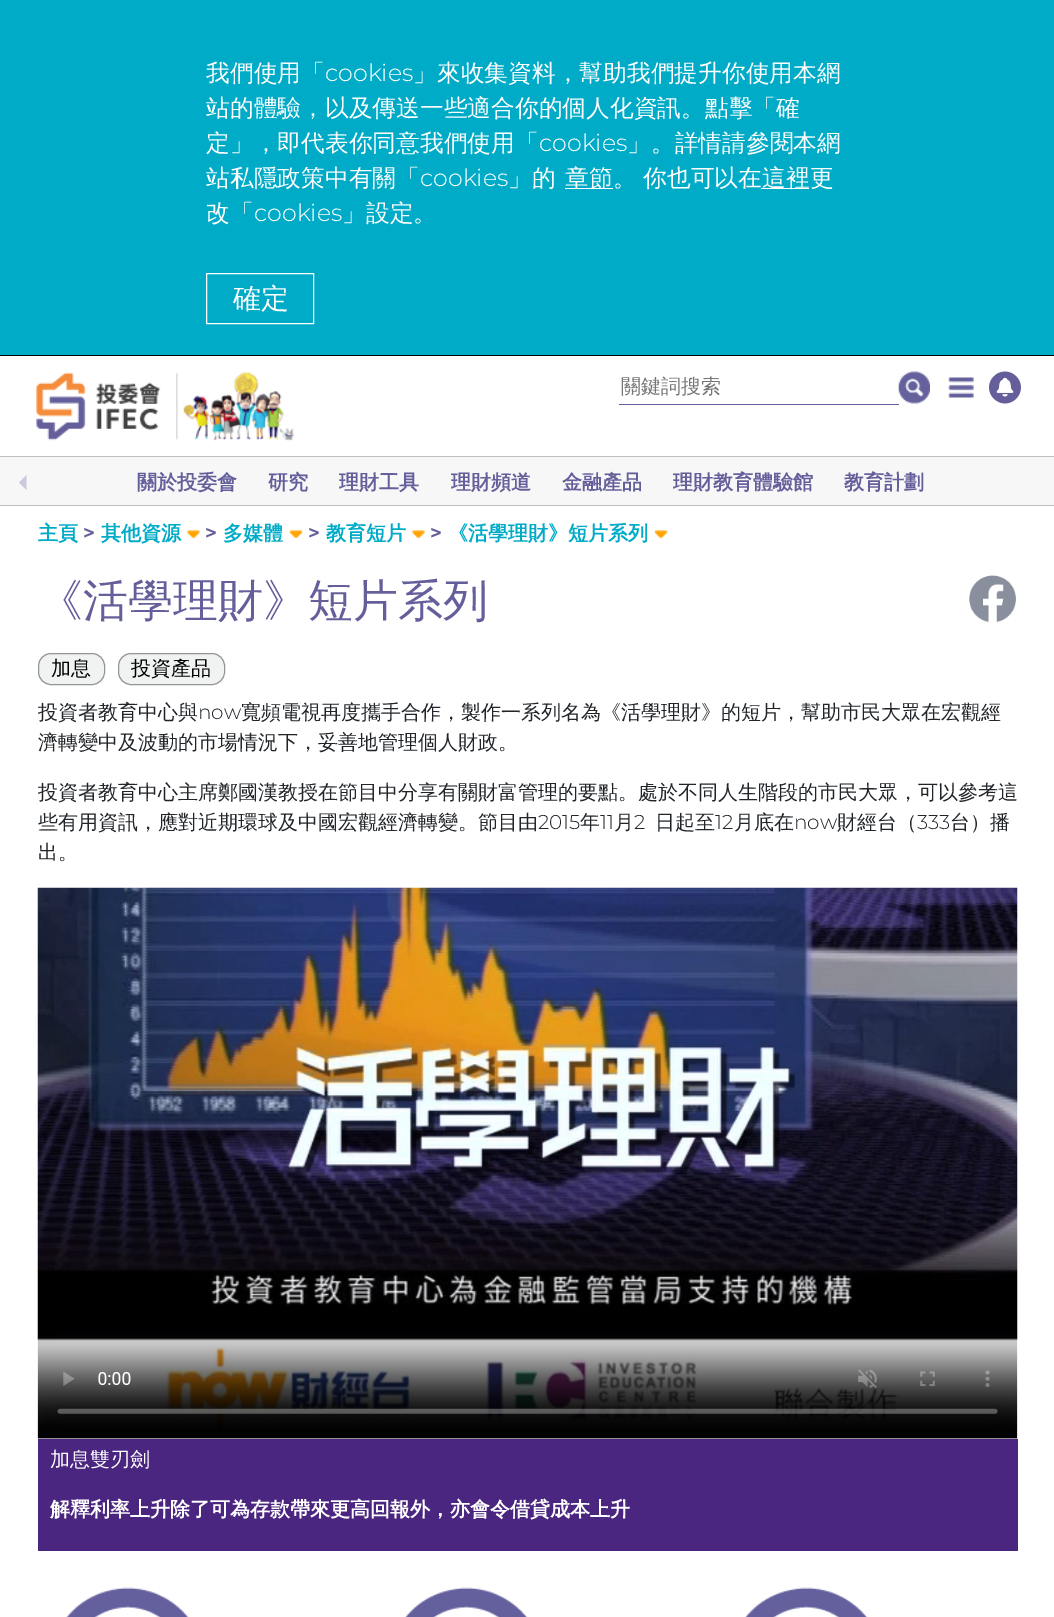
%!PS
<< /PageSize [1054 1617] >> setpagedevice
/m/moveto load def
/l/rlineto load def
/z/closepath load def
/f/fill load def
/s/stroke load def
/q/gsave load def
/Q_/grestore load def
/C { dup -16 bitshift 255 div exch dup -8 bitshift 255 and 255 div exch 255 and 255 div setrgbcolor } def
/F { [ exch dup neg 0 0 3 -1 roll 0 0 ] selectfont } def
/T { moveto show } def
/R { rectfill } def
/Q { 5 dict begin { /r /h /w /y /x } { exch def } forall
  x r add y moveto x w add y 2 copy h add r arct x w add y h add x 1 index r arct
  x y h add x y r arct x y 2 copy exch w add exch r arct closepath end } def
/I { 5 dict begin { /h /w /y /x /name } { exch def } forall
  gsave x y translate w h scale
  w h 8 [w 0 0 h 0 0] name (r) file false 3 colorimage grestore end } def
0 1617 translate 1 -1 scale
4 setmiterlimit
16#FFFFFF C
0 0 1054 1617 R
16#00ABC7 C
0 0 1054 355 R
16#000000 C
0 355 1054 1 R
/WenQuanYiZenHei-Medium 23.75 F
16#FFFFFF C
(我們使用「) 206 81 T
/Montserrat-Light 23.75 F
(cookies) 325 81 T
/WenQuanYiZenHei-Medium 23.75 F
(」來收集資料，幫助我們提升你使用本網) 413 81 T
(站的體驗，以及傳送一些適合你的個人化資訊。點擊「確) 206 116 T
(定」，即代表你同意我們使用「) 206 151 T
/Montserrat-Light 23.75 F
(cookies) 539 151 T
/WenQuanYiZenHei-Medium 23.75 F
(」。詳情請參閱本網) 627 151 T
(站私隱政策中有關「) 206 186 T
/Montserrat-Light 23.75 F
(cookies) 420 186 T
/WenQuanYiZenHei-Medium 23.75 F
(」的) 508 186 T
565 188 48 1 R
(章節。) 565 186 T
(你也可以在) 643 186 T
761 188 48 1 R
(這裡更) 762 186 T
(改「) 206 221 T
/Montserrat-Light 23.75 F
(cookies) 254 221 T
/WenQuanYiZenHei-Medium 23.75 F
(」設定。) 342 221 T
206.5 273.5 107 50 rectstroke
/WenQuanYiZenHei-Medium 28 F
(確定) 233 308 T
(1.rgb) 36 372 259 69 I
16#645F9B C
619 404 280 1 R
/WenQuanYiZenHei-Medium 20 F
16#757575 C
(關鍵詞搜索) 621 393 T
(2.rgb) 898 371 32 33 I
(3.rgb) 948 377 26 21 I
(4.rgb) 989 371 32 33 I
16#F7F7F7 C
0 457 1054 48 R
16#BCBEC0 C
0 456 1054 1 R
0 505 1054 1 R
16#CBC9DB C
19 482.5 m 7.5 7.5 l 0 -15 l z f
/WenQuanYiZenHei-Bold 20 F
16#645F9B C
(關於投委會) 137 489 T
(研究) 268 489 T
(理財工具) 339 489 T
(理財頻道) 451 489 T
(金融產品) 562 489 T
(理財教育體驗館) 673 489 T
(教育計劃) 844 489 T
16#00ABC7 C
(主頁) 38 540 T
/Montserrat-Bold 20 F
16#645F9B C
(>) 83 540 T
/WenQuanYiZenHei-Bold 20 F
16#00ABC7 C
(其他資源) 101 540 T
(5.rgb) 186 530 14 9 I
/Montserrat-Bold 20 F
16#645F9B C
(>) 205 540 T
/WenQuanYiZenHei-Bold 20 F
16#00ABC7 C
(多媒體) 223 540 T
(6.rgb) 289 530 14 9 I
/Montserrat-Bold 20 F
16#645F9B C
(>) 308 540 T
/WenQuanYiZenHei-Bold 20 F
16#00ABC7 C
(教育短片) 326 540 T
(5.rgb) 411 530 14 9 I
/Montserrat-Bold 20 F
16#645F9B C
(>) 430 540 T
/WenQuanYiZenHei-Bold 20 F
16#00ABC7 C
(《活學理財》短片系列) 448 540 T
(7.rgb) 654 530 14 9 I
/WenQuanYiZenHei-Medium 45 F
16#645F9B C
(《活學理財》短片系列) 38 616 T
(8.rgb) 969 575 47 48 I
16#F1F2F2 C
38.5 653.5 66 31 12.5 Q q f Q_
16#939598 C
s
/WenQuanYiZenHei-Medium 20 F
16#000000 C
(加息) 51 675 T
16#F1F2F2 C
118.5 653.5 106 31 12.5 Q q f Q_
16#939598 C
s
16#000000 C
(投資產品) 131 675 T
16#212529 C
(投資者教育中心與) 38 719 T
/Montserrat-Light 20 F
(now) 198 719 T
/WenQuanYiZenHei-Medium 20 F
(寬頻電視再度攜手合作，製作一系列名為《活學理財》的短片，幫助市民大眾在宏觀經) 241 719 T
(濟轉變中及波動的市場情況下，妥善地管理個人財政。) 38 749 T
(投資者教育中心主席鄭國漢教授在節目中分享有關財富管理的要點。處於不同人生階段的市民大眾，可以參考這) 38 799 T
(些有用資訊，應對近期環球及中國宏觀經濟轉變。節目由) 38 829 T
/Montserrat-Light 20 F
(2015) 538 829 T
/WenQuanYiZenHei-Medium 20 F
(年) 580 829 T
/Montserrat-Light 20 F
(11) 600 829 T
/WenQuanYiZenHei-Medium 20 F
(月) 614 829 T
/Montserrat-Light 20 F
(2) 634 829 T
/WenQuanYiZenHei-Medium 20 F
(日起至) 655 829 T
/Montserrat-Light 20 F
(12) 715 829 T
/WenQuanYiZenHei-Medium 20 F
(月底在) 734 829 T
/Montserrat-Light 20 F
(now) 794 829 T
/WenQuanYiZenHei-Medium 20 F
(財經台（) 837 829 T
/Montserrat-Light 20 F
(333) 917 829 T
/WenQuanYiZenHei-Medium 20 F
(台）播) 950 829 T
(出。) 38 859 T
(9.rgb) 37 887 981 552 I
16#4A2680 C
38 1439 980 112 R
16#FFFFFF C
(加息雙刃劍) 50 1466 T
/WenQuanYiZenHei-Bold 20 F
(解釋利率上升除了可為存款帶來更高回報外，亦會令借貸成本上升) 50 1516 T
(10.rgb) 66 1587 123 30 I
(11.rgb) 405 1587 123 30 I
(11.rgb) 745 1587 123 30 I
showpage
